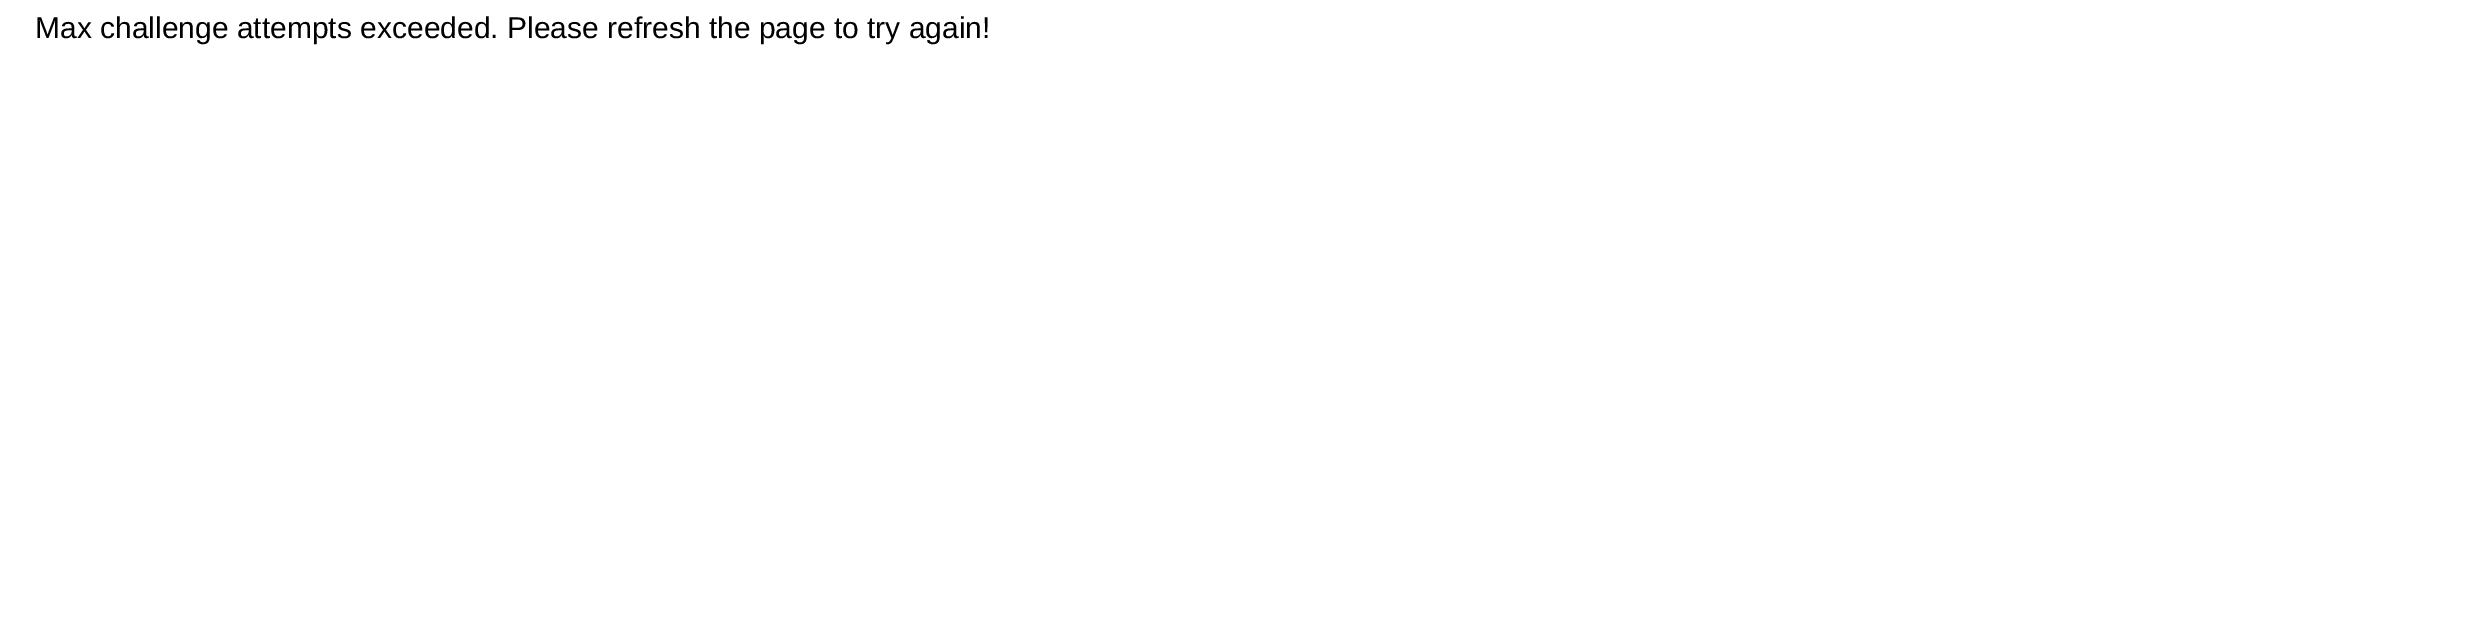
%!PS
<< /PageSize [2469 617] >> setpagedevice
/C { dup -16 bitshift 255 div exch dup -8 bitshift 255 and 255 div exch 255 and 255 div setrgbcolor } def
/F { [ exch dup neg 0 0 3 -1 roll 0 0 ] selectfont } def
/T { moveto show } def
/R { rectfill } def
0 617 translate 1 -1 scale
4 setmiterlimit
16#FFFFFF C
0 0 2469 617 R
/LiberationSans-Regular 30 F
16#000000 C
(Max challenge attempts exceeded. Please refresh the page to try again!) 35 38 T
showpage
